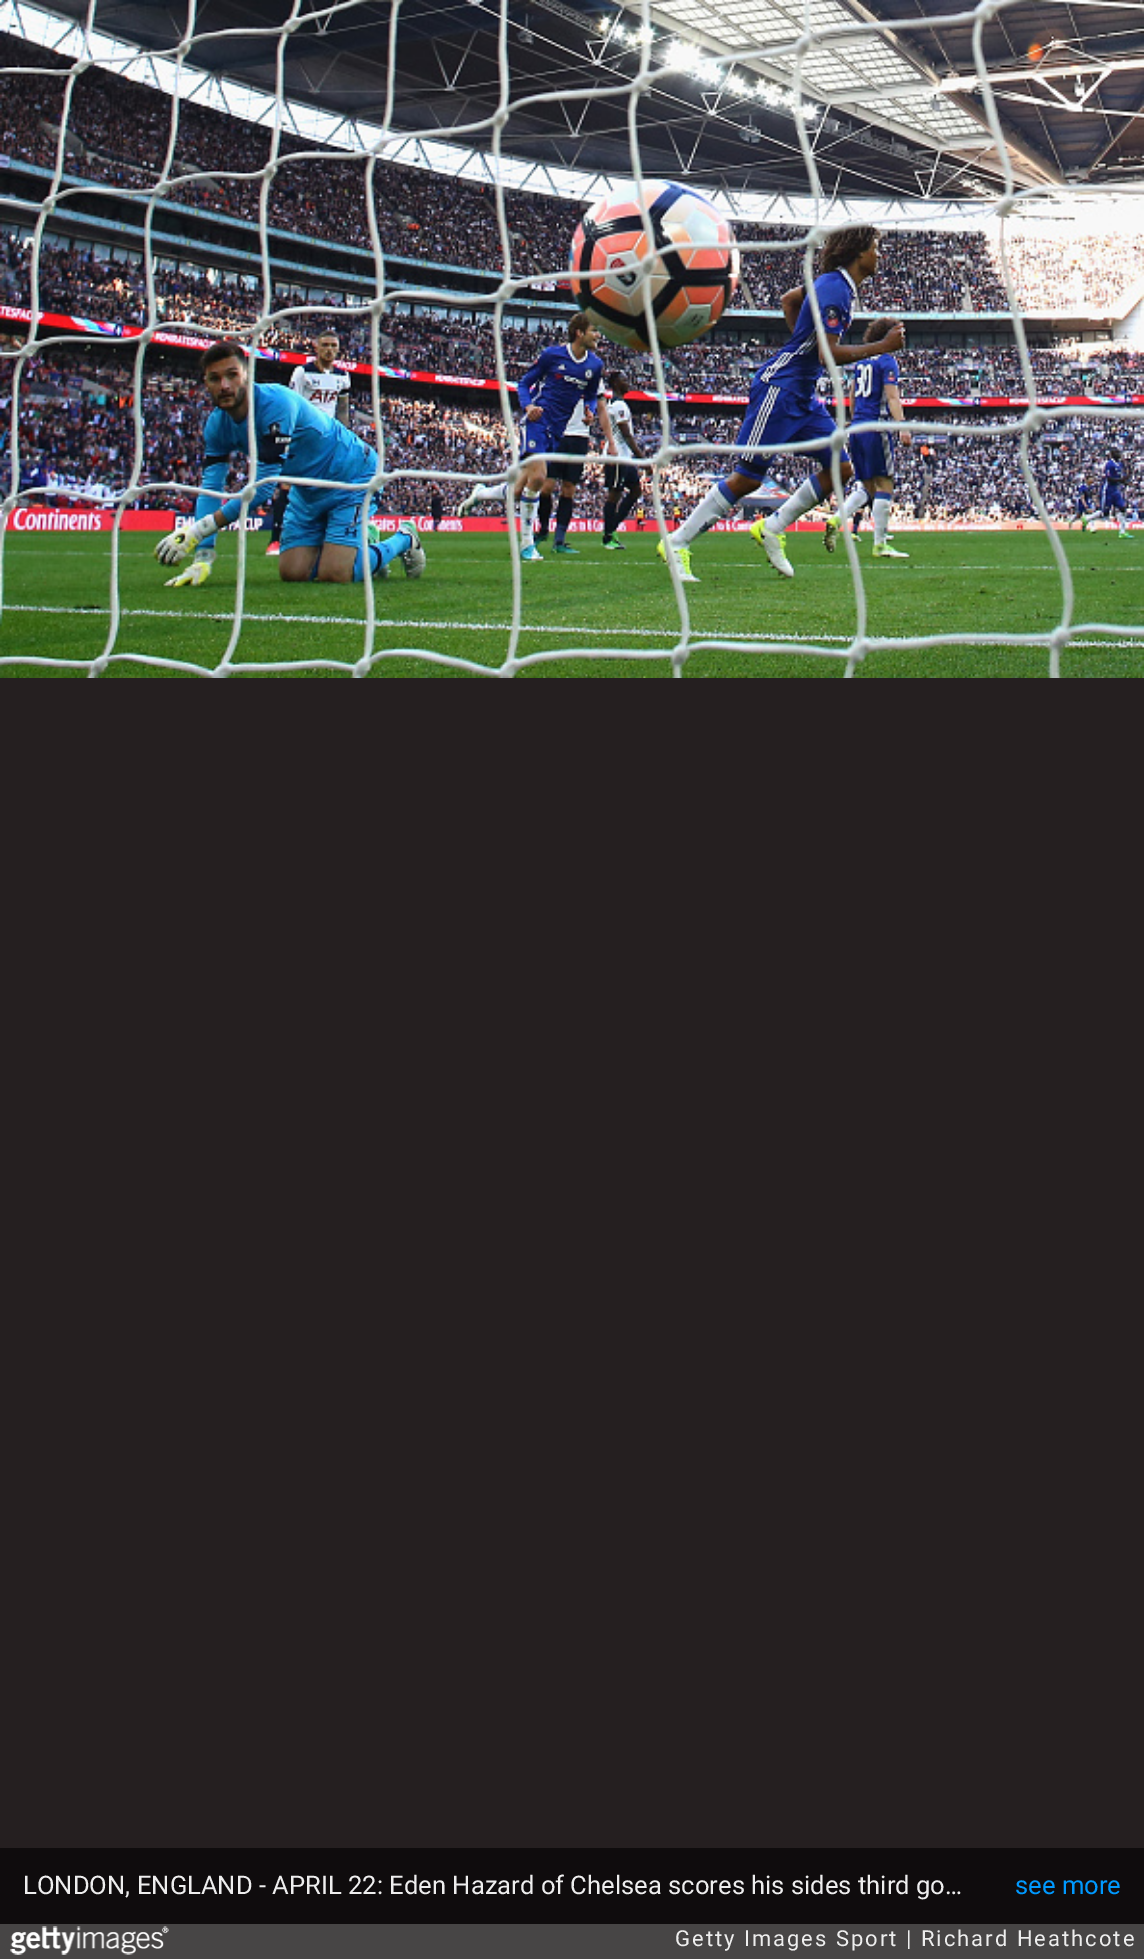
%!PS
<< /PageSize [1144 1959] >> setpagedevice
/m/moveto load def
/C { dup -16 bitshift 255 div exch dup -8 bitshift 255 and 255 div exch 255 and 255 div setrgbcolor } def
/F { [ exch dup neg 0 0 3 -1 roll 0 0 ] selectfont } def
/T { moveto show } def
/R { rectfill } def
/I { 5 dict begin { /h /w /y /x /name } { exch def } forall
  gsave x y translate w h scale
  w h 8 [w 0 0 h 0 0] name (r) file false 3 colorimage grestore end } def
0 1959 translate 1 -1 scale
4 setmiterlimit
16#251F20 C
0 0 1144 1959 R
(1.rgb) 0 0 1144 678 I
16#0F0C0D C
0 1848 1144 76 R
/Roboto-Regular 25.6 F
16#EEEEEE C
(LONDON, ENGLAND - APRIL 22: Eden Hazard of Chelsea scores his sides third go…) 23 1894 T
16#0099FF C
(see more) 1015 1894 T
16#474545 C
0 1924 1144 35 R
(2.rgb) 10 1926 159 29 I
/Roboto-Regular 22 F
16#EEEEEE C
675 1946 m 2 0 (Getty Images Sport | Richard Heathcote) ashow
showpage
